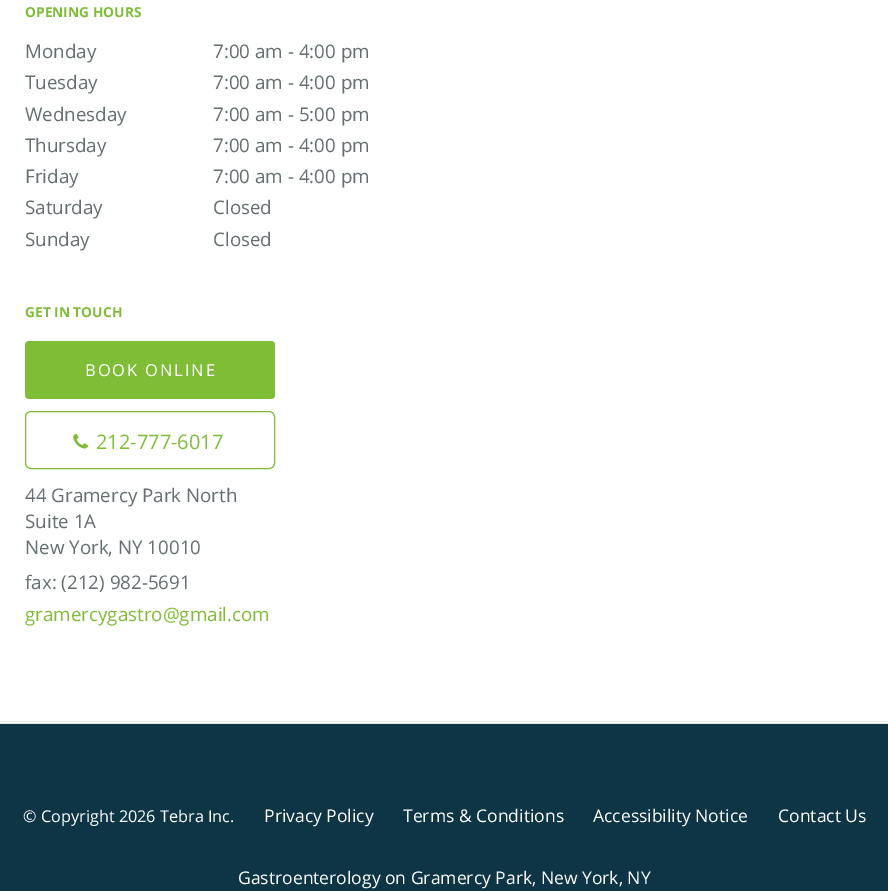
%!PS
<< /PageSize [888 891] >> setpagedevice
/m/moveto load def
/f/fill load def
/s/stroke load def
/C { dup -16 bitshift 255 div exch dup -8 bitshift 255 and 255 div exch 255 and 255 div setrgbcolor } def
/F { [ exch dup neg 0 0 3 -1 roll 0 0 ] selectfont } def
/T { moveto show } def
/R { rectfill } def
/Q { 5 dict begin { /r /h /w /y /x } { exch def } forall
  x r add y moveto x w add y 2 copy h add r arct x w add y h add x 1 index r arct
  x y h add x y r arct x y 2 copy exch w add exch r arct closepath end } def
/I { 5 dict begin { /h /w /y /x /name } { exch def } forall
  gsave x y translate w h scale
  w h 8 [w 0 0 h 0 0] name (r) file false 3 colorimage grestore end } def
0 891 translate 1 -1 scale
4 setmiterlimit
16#FFFFFF C
0 0 888 891 R
16#DFE5E8 C
0 721 888 1 R
/OpenSans-Bold 13.75 F
16#80BD37 C
(OPENING HOURS) 25 17 T
/OpenSans-Regular 18.75 F
16#656F72 C
(Monday) 25 58 T
(7:00 am - 4:00 pm) 213 58 T
(Tuesday) 25 89 T
(7:00 am - 4:00 pm) 213 89 T
(Wednesday) 25 121 T
(7:00 am - 5:00 pm) 213 121 T
(Thursday) 25 152 T
(7:00 am - 4:00 pm) 213 152 T
(Friday) 25 183 T
(7:00 am - 4:00 pm) 213 183 T
(Saturday) 25 214 T
(Closed) 213 214 T
(Sunday) 25 246 T
(Closed) 213 246 T
/OpenSans-Bold 13.75 F
16#80BD37 C
(GET IN TOUCH) 25 317 T
25 341 250 58 4 Q f
/OpenSans-Regular 16.5 F
16#FFFFFF C
85 376 m 1.9 0 (BOOK ONLINE) ashow
16#80BD37 C
25.5 411.5 249 57 5.5 Q s
(1.rgb) 73 433 15 16 I
/OpenSans-Regular 20 F
(212-777-6017) 96 449 T
/OpenSans-Regular 18.75 F
16#656F72 C
(44 Gramercy Park North) 25 502 T
(Suite 1A) 25 528 T
(New York, NY 10010) 25 554 T
(fax: \(212\) 982-5691) 25 589 T
16#80BD37 C
(gramercygastro@gmail.com) 25 621 T
16#DFE5E8 C
0 723 888 1 R
16#0D3545 C
0 724 888 167 R
/OpenSans-Regular 16.25 F
16#FFFFFF C
(© Copyright 2026 Tebra Inc.) 23 822 T
/OpenSans-Regular 17.5 F
(Privacy Policy) 264 822 T
(Terms & Conditions) 403 822 T
(Accessibility Notice) 593 822 T
(Contact Us) 778 822 T
(Gastroenterology on Gramercy Park, New York, NY) 238 884 T
showpage
